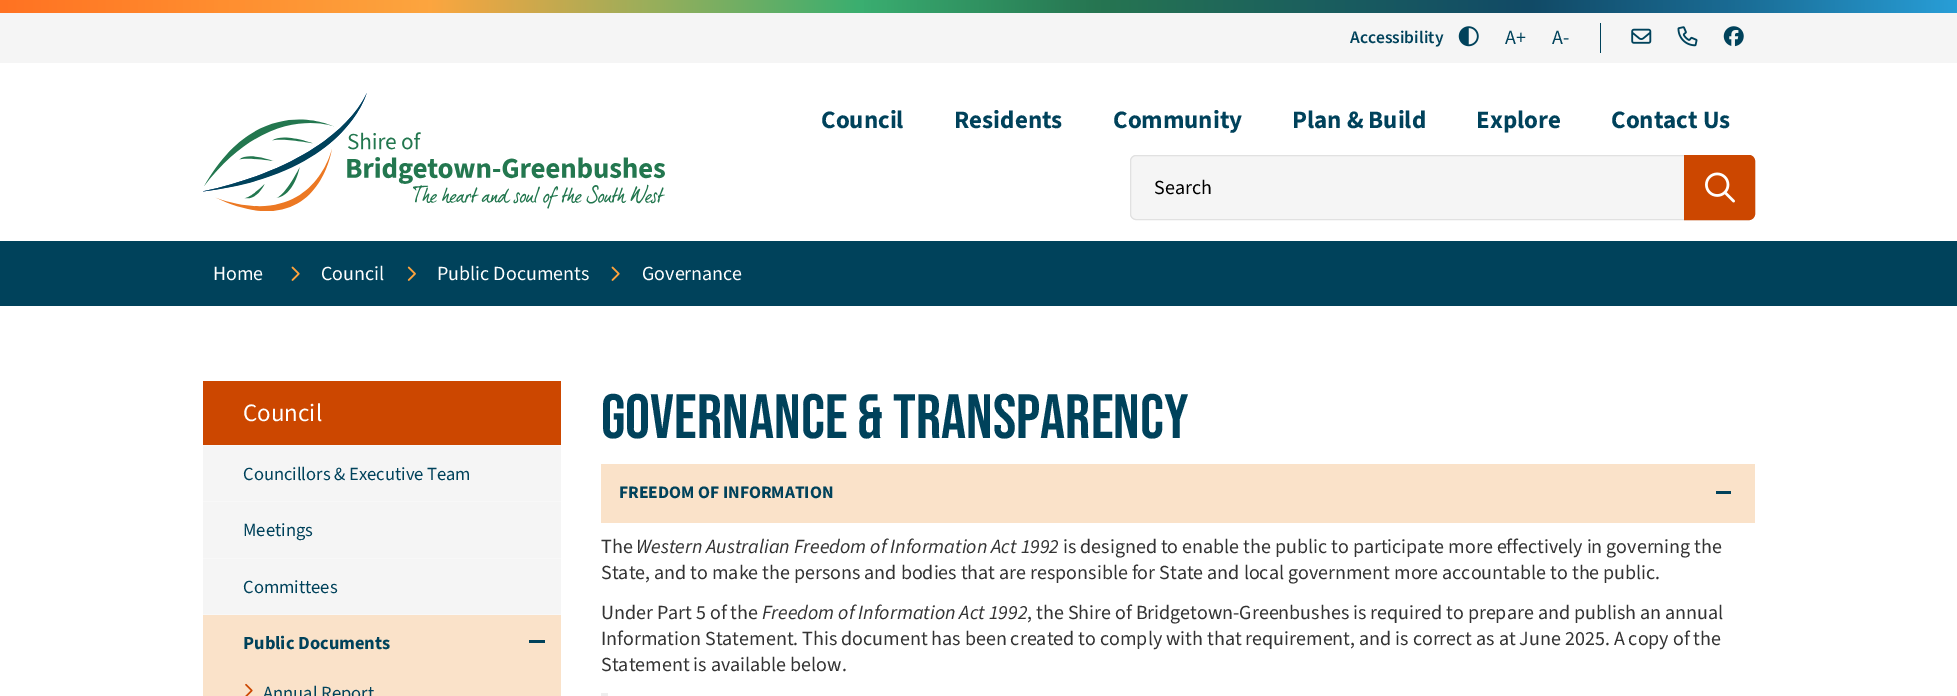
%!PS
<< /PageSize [1957 696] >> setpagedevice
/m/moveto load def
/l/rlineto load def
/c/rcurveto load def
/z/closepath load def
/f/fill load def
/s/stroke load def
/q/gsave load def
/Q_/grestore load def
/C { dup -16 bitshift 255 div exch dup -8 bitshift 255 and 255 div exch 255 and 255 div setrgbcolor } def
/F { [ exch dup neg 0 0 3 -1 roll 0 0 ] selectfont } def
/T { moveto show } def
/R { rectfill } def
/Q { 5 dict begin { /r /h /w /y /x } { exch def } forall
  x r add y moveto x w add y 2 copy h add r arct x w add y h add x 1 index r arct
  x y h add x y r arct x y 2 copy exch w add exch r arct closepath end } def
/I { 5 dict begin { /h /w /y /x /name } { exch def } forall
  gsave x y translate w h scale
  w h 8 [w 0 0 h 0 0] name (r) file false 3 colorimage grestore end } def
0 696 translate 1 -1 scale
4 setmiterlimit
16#FFFFFF C
0 0 1957 696 R
q 0 0 m 1957 0 l 0 13 l -1957 0 l z clip newpath
<< /ShadingType 2 /ColorSpace /DeviceRGB /Coords [0 6.3 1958 6.2] /Extend [true true] /Function << /FunctionType 3 /Domain [0 1] /Functions [<< /FunctionType 2 /Domain [0 1] /C0 [1 .447 .133] /C1 [1 .553 .184] /N 1 >> << /FunctionType 2 /Domain [0 1] /C0 [1 .553 .184] /C1 [.988 .647 .247] /N 1 >> << /FunctionType 2 /Domain [0 1] /C0 [.988 .647 .247] /C1 [.608 .682 .353] /N 1 >> << /FunctionType 2 /Domain [0 1] /C0 [.608 .682 .353] /C1 [.227 .682 .439] /N 1 >> << /FunctionType 2 /Domain [0 1] /C0 [.227 .682 .439] /C1 [.149 .459 .318] /N 1 >> << /FunctionType 2 /Domain [0 1] /C0 [.149 .459 .318] /C1 [.106 .373 .369] /N 1 >> << /FunctionType 2 /Domain [0 1] /C0 [.106 .373 .369] /C1 [.067 .29 .4] /N 1 >> << /FunctionType 2 /Domain [0 1] /C0 [.067 .29 .4] /C1 [.102 .427 .588] /N 1 >> << /FunctionType 2 /Domain [0 1] /C0 [.102 .427 .588] /C1 [.157 .62 .843] /N 1 >>] /Bounds [.11 .22 .33 .44 .56 .67 .78 .89] /Encode [0 1 0 1 0 1 0 1 0 1 0 1 0 1 0 1 0 1] >> >> shfill Q_
16#F5F5F5 C
0 13 1957 50 R
16#00425B C
1600 23 1 30 R
/SourceSans3-SemiBold 17.5 F
(Accessibility) 1350 43 T
(1.rgb) 1458 26 21 21 I
/SourceSans3-Regular 20 F
(A+) 1505 44 T
(A-) 1552 44 T
(2.rgb) 1631 28 21 16 I
(3.rgb) 1677 26 21 21 I
(4.rgb) 1723 26 21 21 I
(5.rgb) 203 93 462 118 I
/SourceSans3-Bold 25 F
(Council) 821 128 T
(Residents) 954 128 T
(Community) 1113 128 T
(Plan & Build) 1292 128 T
(Explore) 1476 128 T
(Contact Us) 1611 128 T
16#F5F5F5 C
1130.5 155.5 624 64 5.5 Q q f Q_
16#E1E1E1 C
s
/SourceSans3-Regular 20 F
16#000000 C
(Search) 1154 194 T
16#CC4700 C
1684.5 155.5 m 64.5 0 l 3 0 5.5 2.5 5.5 5.5 c 0 53 l 0 3 -2.5 5.5 -5.5 5.5 c -64.5 0 l z q f Q_
s
(6.rgb) 1705 172 30 31 I
16#00425B C
0 241 1957 65 R
16#FFFFFF C
(Home) 213 280 T
(7.rgb) 291 266 9 15 I
(Council) 321 280 T
(8.rgb) 407 266 9 15 I
(Public Documents) 437 280 T
(7.rgb) 611 266 9 15 I
(Governance) 642 280 T
16#F5F5F5 C
203 446 358 168 R
16#CC4700 C
203 381 358 64 R
/SourceSans3-Regular 25 F
16#FFFFFF C
(Council) 243 421 T
16#F8F8F8 C
203 445 358 1 R
/SourceSans3-Regular 18.5 F
16#00425B C
(Councillors & Executive Team) 243 480 T
16#F8F8F8 C
203 501 358 1 R
16#00425B C
(Meetings) 243 536 T
16#F8F8F8 C
203 558 358 1 R
16#00425B C
(Committees) 243 593 T
16#F8F8F8 C
203 614 358 1 R
16#FAE2C9 C
203 615 358 81 R
/SourceSans3-Bold 18.5 F
16#00425B C
(Public Documents) 243 649 T
529 640 16 3 R
(9.rgb) 245 683 8 13 I
/SourceSans3-Regular 18.5 F
(Annual Report) 263 699 T
/BebasNeue-Regular 62.5 F
(Governance & Transparency) 601 438 T
16#FAE2C9 C
601 464 1154 59 R
/SourceSans3-Bold 17.5 F
16#00425B C
(FREEDOM OF INFORMATION) 619 498 T
1716 491 15 3 R
/SourceSans3-Regular 20 F
16#333333 C
(The) 601 553 T
/SourceSans3-Italic 20 F
(Western Australian Freedom of Information Act 1992) 636 553 T
/SourceSans3-Regular 20 F
(is designed to enable the public to participate more effectively in governing the) 1063 553 T
(State, and to make the persons and bodies that are responsible for State and local government more accountable to the public.) 601 579 T
(Under Part 5 of the) 601 619 T
/SourceSans3-Italic 20 F
(Freedom of Information Act 1992) 762 619 T
/SourceSans3-Regular 20 F
(, the Shire of Bridgetown-Greenbushes is required to prepare and publish an annual) 1027 619 T
(Information Statement. This document has been created to comply with that requirement, and is correct as at June 2025. A copy of the) 601 645 T
(Statement is available below.) 601 671 T
16#EEEEEE C
601 693 7 3 R
showpage
